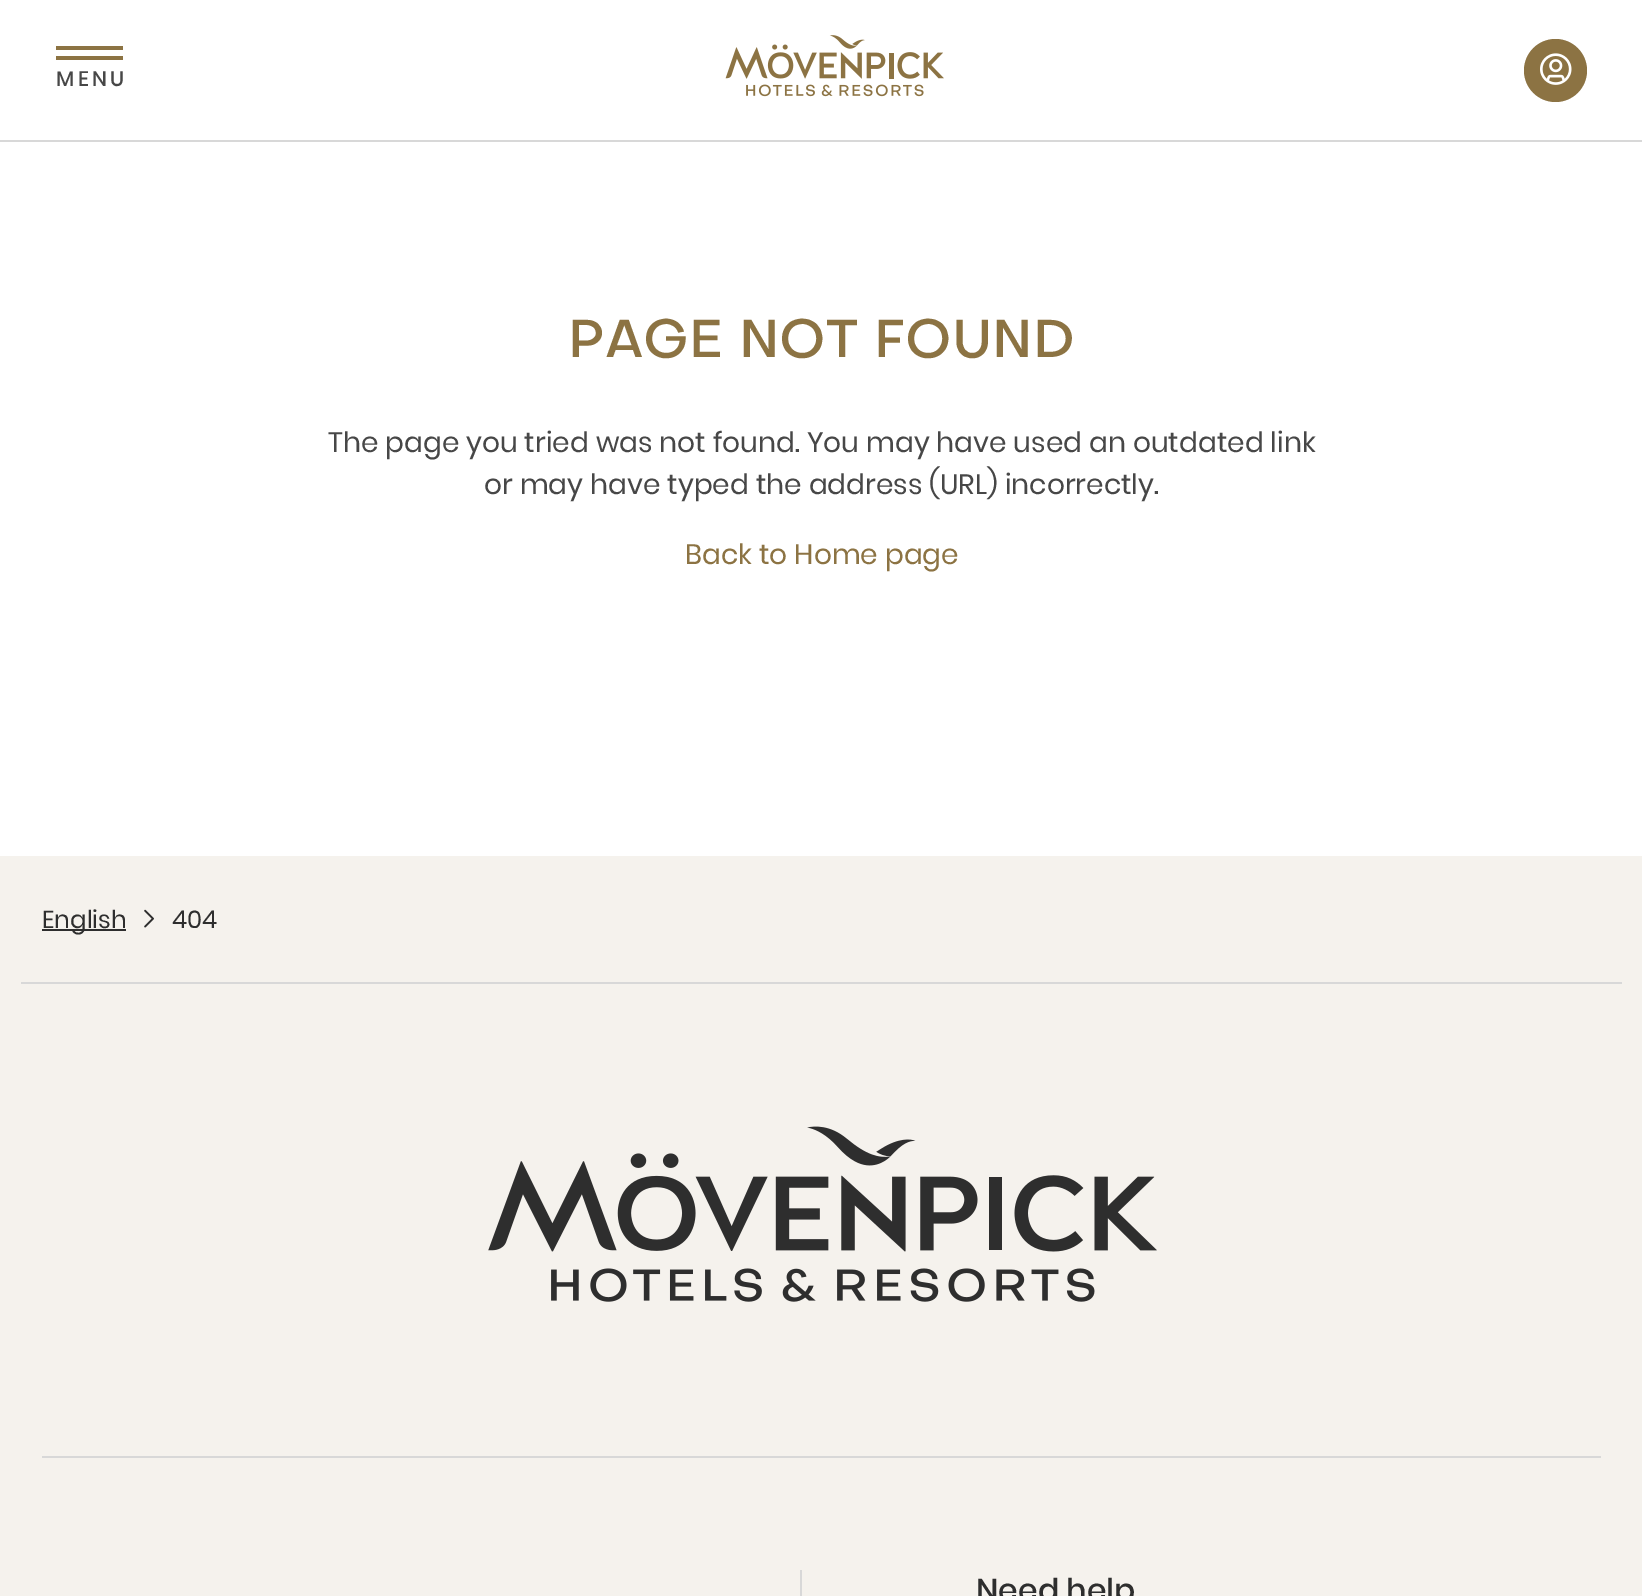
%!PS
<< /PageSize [1642 1596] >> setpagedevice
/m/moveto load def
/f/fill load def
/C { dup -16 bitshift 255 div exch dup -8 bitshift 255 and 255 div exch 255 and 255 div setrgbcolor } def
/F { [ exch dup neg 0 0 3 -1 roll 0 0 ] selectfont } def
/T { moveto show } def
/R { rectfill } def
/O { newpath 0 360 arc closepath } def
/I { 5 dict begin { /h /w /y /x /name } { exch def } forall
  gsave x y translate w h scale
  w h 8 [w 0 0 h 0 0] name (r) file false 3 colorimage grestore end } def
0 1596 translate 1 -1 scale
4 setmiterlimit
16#FFFFFF C
0 0 1642 1596 R
16#D8D8D8 C
0 140 1642 2 R
16#8C7343 C
56 46 67 4 R
56 56 67 4 R
/Poppins-Medium 21 F
16#474747 C
56 86 m 3.5 0 (MENU) ashow
(1.rgb) 725 35 219 62 I
16#8C7343 C
1555.5 70.5 31.5 O f
(2.rgb) 1540 53 32 32 I
/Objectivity-Medium 52.5 F
(PAGE NOT FOUND) 568 357 T
/Poppins-Regular 28 F
16#474747 C
(The page you tried was not found. You may have used an outdated link) 328 452 T
(or may have typed the address \(URL\) incorrectly.) 484 494 T
16#8C7343 C
(Back to Home page) 685 564 T
16#F5F2ED C
0 856 1642 740 R
16#2E2E2E C
42 929 84 2 R
/Poppins-Regular 24.5 F
(English) 42 928 T
(3.rgb) 144 909 10 19 I
(404) 172 928 T
16#D8D8D8 C
21 982 1601 2 R
(4.rgb) 488 1126 669 176 I
42 1456 1559 2 R
800 1570 2 26 R
/Poppins-Medium 31.5 F
16#2E2E2E C
(Need help) 976 1601 T
showpage
